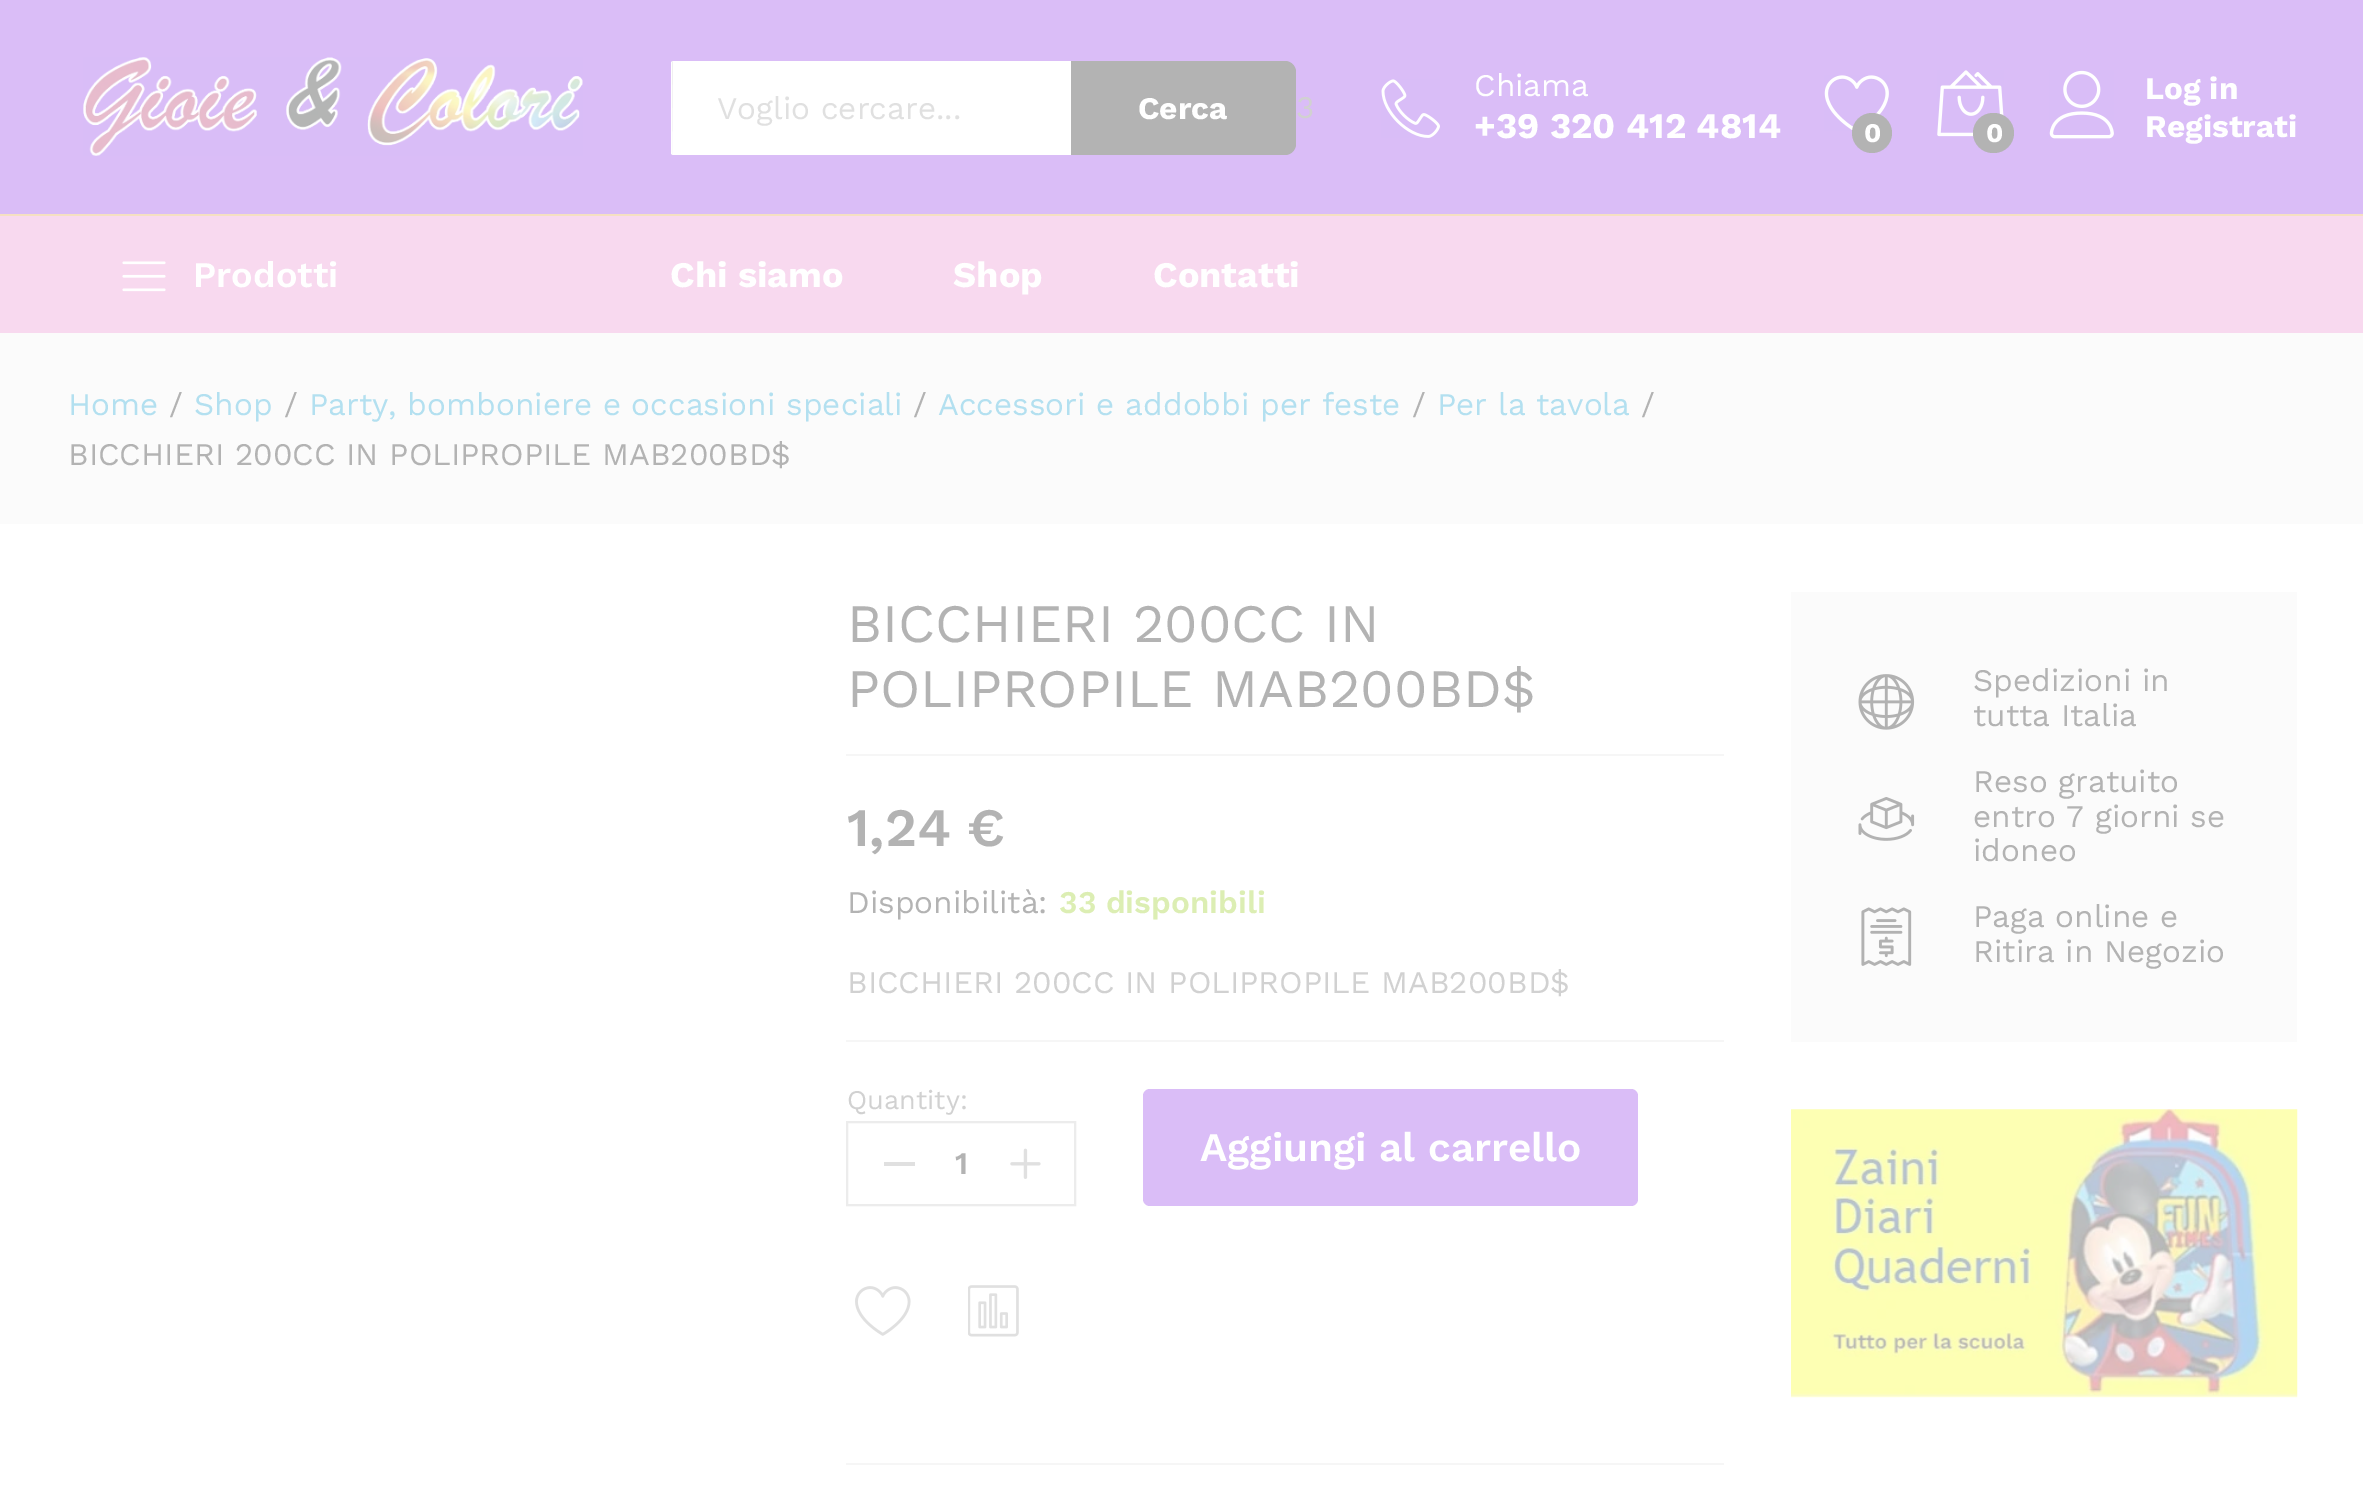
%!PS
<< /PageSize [2363 1505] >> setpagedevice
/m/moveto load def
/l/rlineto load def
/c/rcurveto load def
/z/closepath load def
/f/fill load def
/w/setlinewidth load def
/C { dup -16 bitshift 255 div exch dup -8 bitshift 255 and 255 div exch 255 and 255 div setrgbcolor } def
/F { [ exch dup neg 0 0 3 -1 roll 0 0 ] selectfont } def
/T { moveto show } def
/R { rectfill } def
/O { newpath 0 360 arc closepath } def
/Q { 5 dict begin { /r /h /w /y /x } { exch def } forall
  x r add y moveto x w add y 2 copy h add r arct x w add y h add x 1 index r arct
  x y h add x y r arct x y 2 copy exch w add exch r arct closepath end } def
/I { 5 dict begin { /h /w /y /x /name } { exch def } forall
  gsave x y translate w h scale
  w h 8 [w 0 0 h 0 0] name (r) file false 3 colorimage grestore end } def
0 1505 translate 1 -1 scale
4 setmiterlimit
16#FFFFFF C
0 0 2363 1505 R
16#DABDF7 C
0 0 2363 214 R
(1.rgb) 83 57 500 99 I
16#FFFFFF C
673 61 m 0 94 l -1 0 -2 -1 -2 -2 c 0 -90 l 0 -1 1 -2 2 -2 c z f
16#F0F0F0 C
672 155 m 0 -1 l 0 -92 l 1 -1 l z f
16#FFFFFF C
673 61 398 94 R
/WorkSans-Regular 31.5 F
16#E0E0E0 C
(Voglio cercare...) 717 119 T
16#B3B3B3 C
1071 61 m 214 0 l 6 0 11 5 11 11 c 0 72 l 0 6 -5 11 -11 11 c -214 0 l z f
/WorkSans-Bold 31.5 F
16#FFFFFF C
(Cerca) 1138 119 T
/WorkSans-Regular 31.5 F
16#D1D1D1 C
(3) 1296 118 T
(2.rgb) 1381 79 59 59 I
16#FFFFFF C
(Chiama) 1474 96 T
/WorkSans-Bold 36 F
(+39 320 412 4814) 1474 138 T
(3.rgb) 1824 75 65 56 I
16#B3B3B3 C
1872 133 20 O f
/WorkSans-Bold 27 F
16#FFFFFF C
(0) 1864 142 T
(4.rgb) 1937 70 67 67 I
16#B3B3B3 C
1973 113 41 40 20 Q f
16#FFFFFF C
(0) 1986 142 T
(5.rgb) 2049 70 65 69 I
/WorkSans-Bold 31.5 F
(Log in) 2145 99 T
(Registrati) 2145 137 T
16#F8D9EF C
0 216 2363 117 R
16#F5E0C2 C
0 214 2363 2 R
(6.rgb) 122 261 44 31 I
/WorkSans-SemiBold 36 F
16#FFFFFF C
(Prodotti) 193 287 T
/WorkSans-Bold 36 F
(Chi siamo) 670 287 T
(Shop) 953 287 T
(Contatti) 1153 287 T
16#FBFBFB C
0 333 2363 191 R
/WorkSans-Regular 31.5 F
16#B3E0F0 C
(Home) 68 415 T
16#B3B3B3 C
(/) 169 415 T
16#B3E0F0 C
(Shop) 194 415 T
16#B3B3B3 C
(/) 284 415 T
16#B3E0F0 C
(Party, bomboniere e occasioni speciali) 309 415 T
16#B3B3B3 C
(/) 913 415 T
16#B3E0F0 C
(Accessori e addobbi per feste) 938 415 T
16#B3B3B3 C
(/) 1412 415 T
16#B3E0F0 C
(Per la tavola) 1437 415 T
16#B3B3B3 C
(/) 1641 415 T
(BICCHIERI 200CC IN POLIPROPILE MAB200BD$) 68 465 T
16#F6F6F6 C
846 754 878 2 R
/WorkSans-Regular 54 F
16#B3B3B3 C
(BICCHIERI 200CC IN) 847 642 T
(POLIPROPILE MAB200BD$) 847 707 T
/WorkSans-SemiBold 54 F
(1,24 €) 847 846 T
/WorkSans-Regular 31.5 F
(Disponibilità:) 847 913 T
/WorkSans-SemiBold 31.5 F
16#DCEEB3 C
(33 disponibili) 1059 913 T
16#F6F6F6 C
846 1040 878 2 R
/WorkSans-Regular 31.5 F
16#D1D1D1 C
(BICCHIERI 200CC IN POLIPROPILE MAB200BD$) 847 993 T
/WorkSans-Regular 27 F
(Quantity:) 847 1109 T
16#ECECEC C
2 w
847 1122 228 83 rectstroke
16#E0E0E0 C
884 1162 31 4 R
/WorkSans-SemiBold 31.5 F
16#B3B3B3 C
(1) 955 1174 T
(7.rgb) 1010 1148 31 31 I
16#DABDF7 C
1143 1089 495 117 7 Q f
/WorkSans-SemiBold 40.5 F
16#FFFFFF C
(Aggiungi al carrello) 1200 1161 T
(8.rgb) 855 1286 56 50 I
(9.rgb) 968 1285 51 52 I
16#F6F6F6 C
846 1463 878 2 R
16#FBFBFB C
1791 592 506 450 R
(10.rgb) 1858 674 57 56 I
/WorkSans-Regular 31.5 F
16#B3B3B3 C
(Spedizioni in) 1973 691 T
(tutta Italia) 1973 726 T
(Reso gratuito) 1973 792 T
(11.rgb) 1858 797 57 44 I
(entro 7 giorni se) 1973 827 T
(idoneo) 1973 861 T
(12.rgb) 1861 907 51 59 I
(Paga online e) 1973 927 T
(Ritira in Negozio) 1973 962 T
(13.rgb) 1791 1109 507 289 I
showpage
